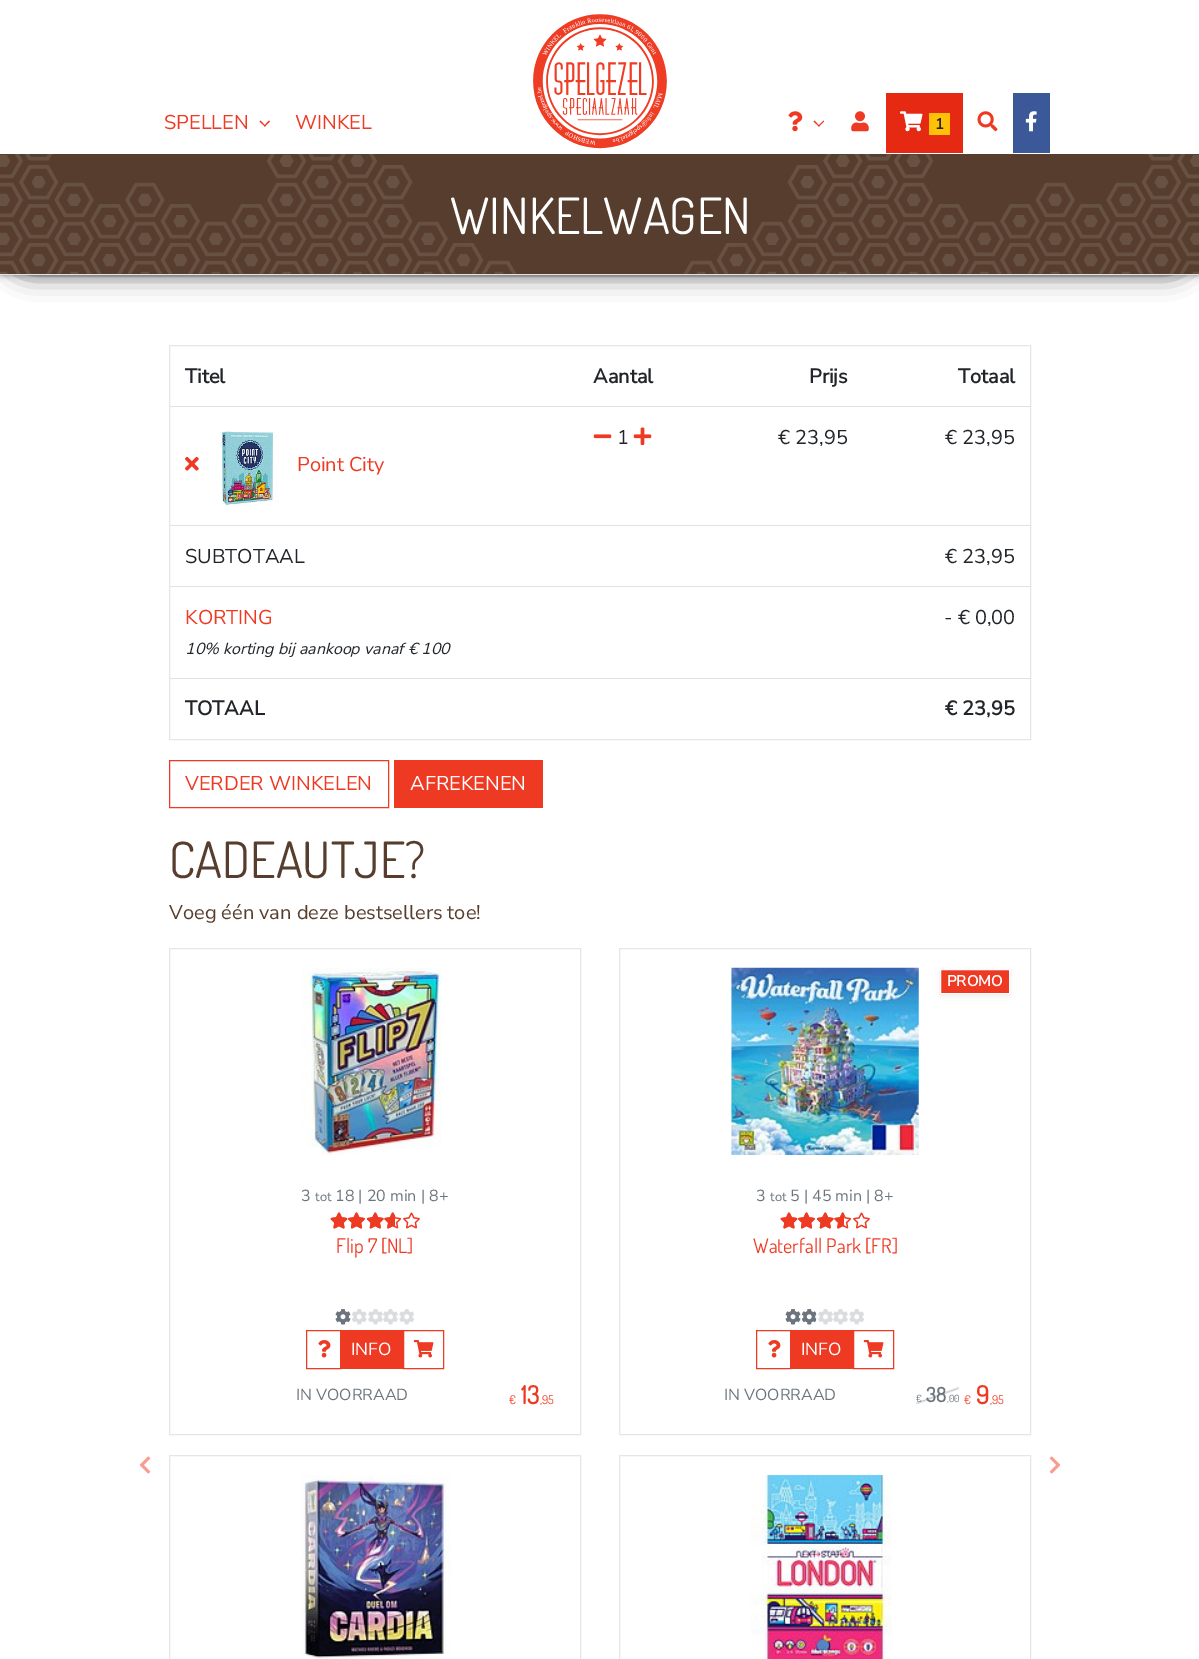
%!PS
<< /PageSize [1199 1659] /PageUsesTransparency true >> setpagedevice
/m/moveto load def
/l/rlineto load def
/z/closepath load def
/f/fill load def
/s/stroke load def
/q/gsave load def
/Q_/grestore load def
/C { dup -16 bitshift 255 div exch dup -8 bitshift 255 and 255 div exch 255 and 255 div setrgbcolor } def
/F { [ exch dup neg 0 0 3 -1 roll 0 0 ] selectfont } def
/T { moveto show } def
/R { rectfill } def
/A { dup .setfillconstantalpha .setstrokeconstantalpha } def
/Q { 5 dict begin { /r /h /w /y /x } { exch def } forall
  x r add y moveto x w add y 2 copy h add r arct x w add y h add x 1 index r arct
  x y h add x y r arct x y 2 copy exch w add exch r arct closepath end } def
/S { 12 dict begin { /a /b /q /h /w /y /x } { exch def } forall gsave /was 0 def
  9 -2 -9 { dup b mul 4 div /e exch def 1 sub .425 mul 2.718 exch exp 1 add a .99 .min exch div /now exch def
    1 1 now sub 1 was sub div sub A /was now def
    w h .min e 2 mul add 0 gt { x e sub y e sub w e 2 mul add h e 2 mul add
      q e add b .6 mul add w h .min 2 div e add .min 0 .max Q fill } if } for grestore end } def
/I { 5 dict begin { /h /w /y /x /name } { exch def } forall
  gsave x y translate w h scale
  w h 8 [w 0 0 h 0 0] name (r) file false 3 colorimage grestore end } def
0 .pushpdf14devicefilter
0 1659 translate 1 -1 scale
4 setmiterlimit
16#FFFFFF C
0 0 1199 1659 R
16#000000 C
0 155 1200 121 0 2.5 .3 S
(1.rgb) 533 14 134 135 I
16#FFFFFF C
0 150 1199 4 R
/NunitoSans-ExtraLight 20 F
16#EE3923 C
(SPELLEN) 164 129 T
269 120.5 m 1 1 l -5 5 l -1 -.5 l z f
260.5 120.5 m 5 5.5 l -.5 .5 l -5.5 -5 l z f
(WINKEL) 295 129 T
(2.rgb) 788 111 15 21 I
823.5 120.5 m .5 1 l -5 5 l -1 -.5 l z f
814.5 120.5 m 5 5.5 l -.5 .5 l -5.5 -5 l z f
(3.rgb) 851 111 18 21 I
16#E62912 C
886 93 77 60 R
(4.rgb) 900 111 23 21 I
16#FFC107 C
929 113 21 22 R
/NunitoSans-Bold 15 F
16#212529 C
(1) 935 129 T
(5.rgb) 977 111 21 21 I
16#3B5998 C
1013 93 37 60 R
(6.rgb) 1025 111 12 21 I
16#000000 C
0 195 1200 79 39.5 12.5 .66 S
16#563D2D C
0 154 1199 120 R
(7.rgb) 0 154 1199 120 I
16#DEE2E6 C
0 274 1199 1 R
/Dosis-Regular 50 F
16#FFFFFF C
(WINKELWAGEN) 450 234 T
16#E6E6E6 C
169.5 345.5 861 394 rectstroke
/NunitoSans-Bold 20 F
16#212529 C
(Titel) 185 383 T
(Aantal) 593 383 T
(Prijs) 809 383 T
(Totaal) 958 383 T
(8.rgb) 593 434 19 5 I
/NunitoSans-ExtraLight 20 F
(1) 617 444 T
(9.rgb) 633 427 19 18 I
(€ 23,95) 778 444 T
16#DEE2E6 C
170 406 861 1 R
16#212529 C
(€ 23,95) 945 444 T
(10.rgb) 185 456 14 15 I
(11.rgb) 220 431 59 76 I
16#EE3923 C
(Point City) 297 471 T
16#212529 C
(SUBTOTAAL) 185 563 T
16#DEE2E6 C
170 525 861 1 R
16#212529 C
(€ 23,95) 945 563 T
16#EE3923 C
(KORTING) 185 624 T
/NunitoSans-ExtraLightItalic 16 F
16#212529 C
(10% korting bij aankoop vanaf € 100) 185 654 T
16#DEE2E6 C
170 586 861 1 R
/NunitoSans-ExtraLight 20 F
16#212529 C
(- € 0,00) 944 624 T
/NunitoSans-Bold 20 F
(TOTAAL) 185 715 T
16#DEE2E6 C
170 678 861 1 R
16#212529 C
(€ 23,95) 945 715 T
16#EE3923 C
169.5 760.5 219 47 rectstroke
/NunitoSans-ExtraLight 20 F
(VERDER WINKELEN) 185 790 T
394 760 149 48 R
16#FFFFFF C
(AFREKENEN) 410 790 T
/Dosis-Regular 50 F
16#563D2D C
(CADEAUTJE?) 169 878 T
/NunitoSans-ExtraLight 20 F
(Voeg één van deze bestsellers toe!) 169 919 T
16#E6E6E6 C
169.5 948.5 411 486 rectstroke
(12.rgb) 301 967 141 188 I
/NunitoSans-ExtraLight 16 F
16#6C757D C
(3) 301 1201 T
/NunitoSans-ExtraLight 13 F
(tot) 315 1201 T
/NunitoSans-ExtraLight 16 F
(18 | 20 min | 8+) 335 1201 T
(13.rgb) 330 1212 18 17 I
(14.rgb) 330 1212 18 17 I
(18.rgb) 348 1212 17 17 I
(15.rgb) 348 1212 17 17 I
(19.rgb) 366 1212 18 17 I
(16.rgb) 366 1212 18 17 I
(20.rgb) 384 1212 18 17 I
(17.rgb) 384 1212 11 17 I
(18.rgb) 403 1212 17 17 I
/Dosis-Regular 20 F
16#EE3923 C
(Flip 7 [NL]) 336 1253 T
(21.rgb) 335 1309 16 16 I
(22.rgb) 352 1309 15 16 I
(23.rgb) 368 1309 15 16 I
(23.rgb) 383 1309 15 16 I
(24.rgb) 399 1309 15 16 I
(25.rgb) 335 1309 16 16 I
306.5 1330.5 34 38 rectstroke
(26.rgb) 318 1340 13 18 I
341 1330 62 39 R
/NunitoSans-ExtraLight 17.5 F
16#FFFFFF C
(INFO) 351 1355 T
16#EE3923 C
403.5 1330.5 40 38 rectstroke
(27.rgb) 413 1340 21 18 I
/NunitoSans-ExtraLight 16 F
16#6C757D C
(IN VOORRAAD) 296 1400 T
/Dosis-Regular 12 F
16#EE3923 C
(€) 509 1404 T
/Dosis-Bold 25 F
(13) 521 1404 T
/Dosis-Regular 12 F
(,95) 540 1404 T
16#E6E6E6 C
619.5 948.5 411 486 rectstroke
(28.rgb) 731 967 188 188 I
16#000000 C
940 971 70 25 0 2.5 .07 S
16#EE3923 C
940.5 969.5 m 69 0 l 0 24 l -69 0 l z q f Q_
16#FFFFFF C
s
/NunitoSans-Bold 15 F
(PROMO) 947 986 T
/NunitoSans-ExtraLight 16 F
16#6C757D C
(3) 756 1201 T
/NunitoSans-ExtraLight 13 F
(tot) 770 1201 T
/NunitoSans-ExtraLight 16 F
(5 | 45 min | 8+) 790 1201 T
(13.rgb) 780 1212 18 17 I
(14.rgb) 780 1212 18 17 I
(18.rgb) 798 1212 17 17 I
(15.rgb) 798 1212 17 17 I
(19.rgb) 816 1212 18 17 I
(16.rgb) 816 1212 18 17 I
(20.rgb) 834 1212 18 17 I
(29.rgb) 834 1212 10 17 I
(18.rgb) 853 1212 17 17 I
/Dosis-Regular 20 F
16#EE3923 C
(Waterfall Park [FR]) 753 1253 T
(21.rgb) 785 1309 16 16 I
(22.rgb) 802 1309 15 16 I
(23.rgb) 818 1309 15 16 I
(23.rgb) 833 1309 15 16 I
(24.rgb) 849 1309 15 16 I
(25.rgb) 785 1309 16 16 I
(30.rgb) 801 1309 15 16 I
756.5 1330.5 34 38 rectstroke
(26.rgb) 768 1340 13 18 I
791 1330 62 39 R
/NunitoSans-ExtraLight 17.5 F
16#FFFFFF C
(INFO) 801 1355 T
16#EE3923 C
853.5 1330.5 40 38 rectstroke
(27.rgb) 863 1340 21 18 I
/NunitoSans-ExtraLight 16 F
16#6C757D C
(IN VOORRAAD) 724 1400 T
(31.rgb) 916 1387 43 17 I
/Dosis-Regular 10 F
(€) 916 1402 T
/Dosis-Bold 20 F
(38) 926 1402 T
/Dosis-Regular 10 F
(,00) 947 1402 T
/Dosis-Regular 12 F
16#EE3923 C
(€) 964 1404 T
/Dosis-Bold 25 F
(9) 976 1404 T
/Dosis-Regular 12 F
(,95) 990 1404 T
16#E6E6E6 C
169.5 1455.5 411 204 rectstroke
(32.rgb) 301 1475 150 183 I
619.5 1455.5 411 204 rectstroke
(33.rgb) 751 1474 141 185 I
(34.rgb) 139 1456 12 18 I
(35.rgb) 1049 1456 11 18 I
.poppdf14devicefilter showpage
